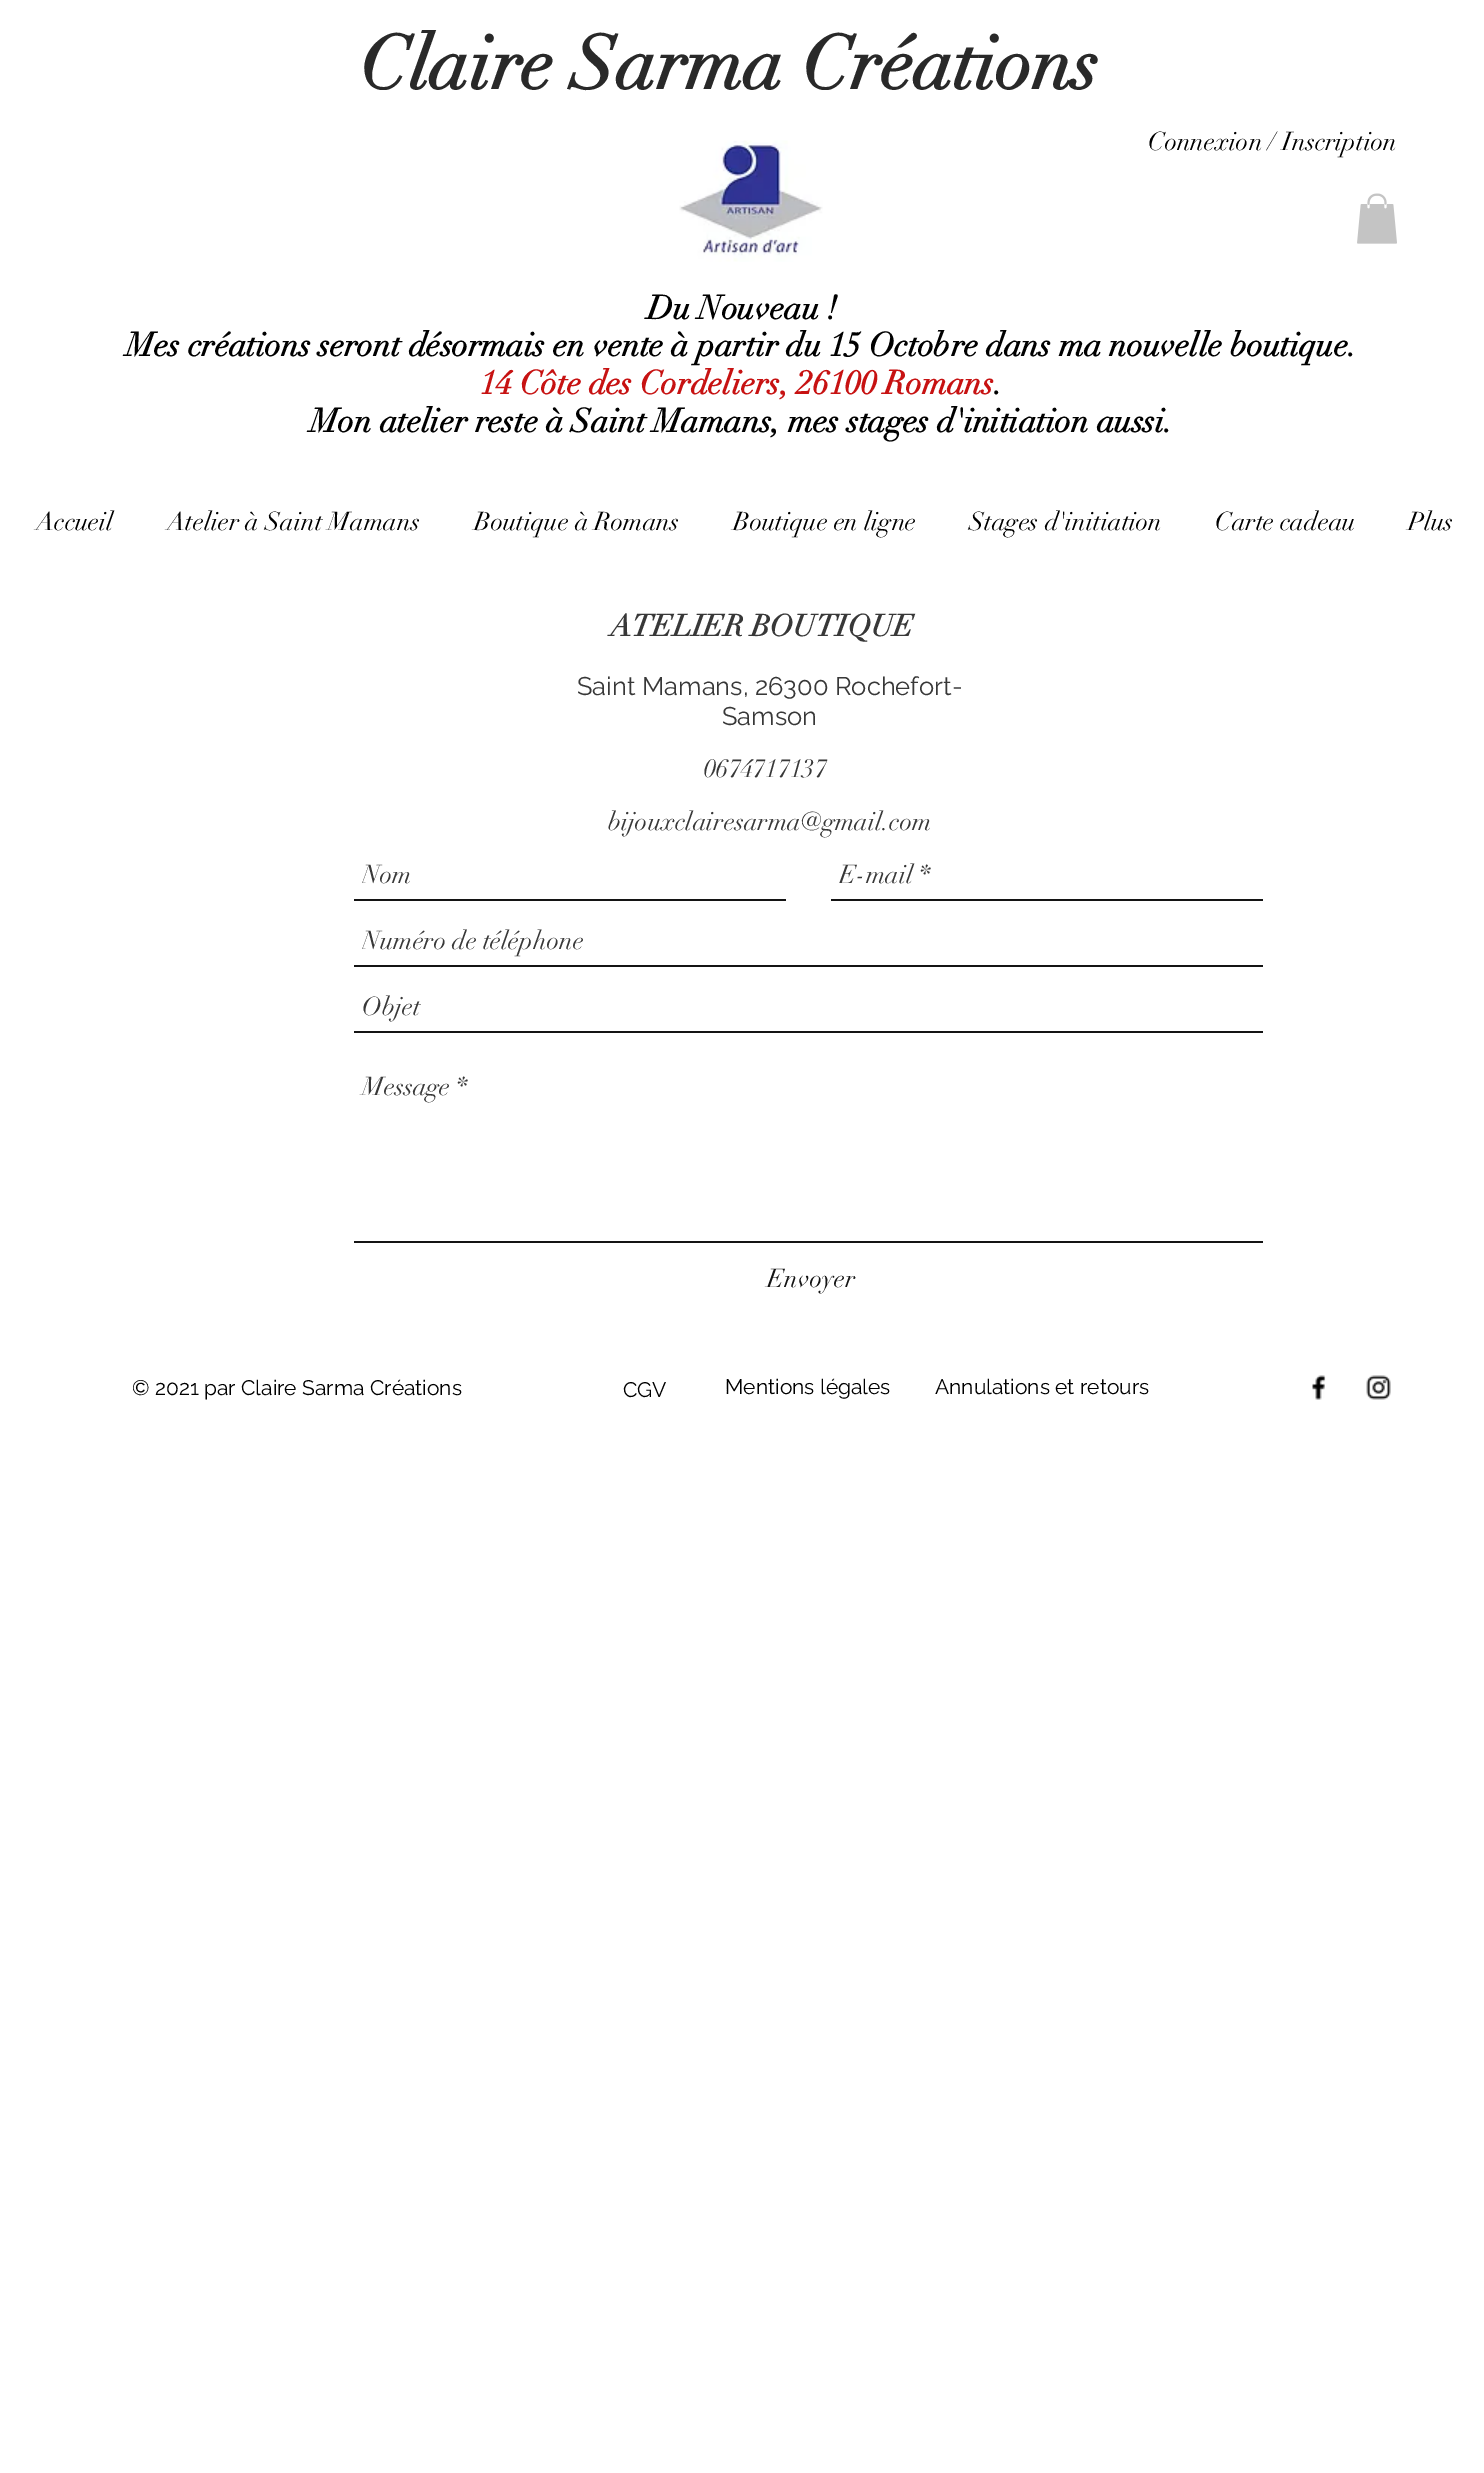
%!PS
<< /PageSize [1484 2473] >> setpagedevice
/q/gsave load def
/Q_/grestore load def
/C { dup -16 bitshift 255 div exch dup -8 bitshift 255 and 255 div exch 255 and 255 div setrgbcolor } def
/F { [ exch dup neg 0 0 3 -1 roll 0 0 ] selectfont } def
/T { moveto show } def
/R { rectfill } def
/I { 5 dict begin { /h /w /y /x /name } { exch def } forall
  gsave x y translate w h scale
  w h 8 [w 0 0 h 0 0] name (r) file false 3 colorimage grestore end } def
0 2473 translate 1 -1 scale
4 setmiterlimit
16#FFFFFF C
0 0 1484 2473 R
/didot-Bold 75 F
16#292929 C
(Claire Sarma Créations) 360 89 T
(1.rgb) 679 140 144 122 I
/didot-Regular 25.5 F
16#000000 C
(Connexion / Inscription) 1148 150 T
(2.rgb) 1357 193 40 51 I
/didot-Bold 33 F
(Du Nouveau !) 647 319 T
(Mes créations seront désormais en vente à partir du 15 Octobre dans ma nouvelle boutique.) 126 356 T
16#C71212 C
(14 Côte des Cordeliers, 26100 Romans) 480 394 T
16#000000 C
(.) 994 394 T
(Mon atelier reste à Saint Mamans, mes stages d'initiation aussi.) 310 432 T
/didot-Regular 25.5 F
(Accueil) 36 530 T
(Atelier à Saint Mamans) 167 530 T
(Boutique à Romans) 474 530 T
(Boutique en ligne) 733 530 T
(Stages d'initiation) 969 530 T
(Carte cadeau) 1215 530 T
(Plus) 1408 530 T
/didot-Bold 30 F
16#383838 C
(ATELIER BOUTIQUE) 610 636 T
/Raleway-Regular 25.5 F
(Saint Mamans, 26300 Rochefort-) 577 695 T
(Samson) 722 725 T
/didot-Regular 25.5 F
(0674717137) 704 777 T
(bijouxclairesarma@gmail.com) 608 830 T
16#141414 C
354 899 432 2 R
q
362 860 420 31 rectclip
16#383838 C
(Nom) 362 883 T
Q_
831 899 432 2 R
q
839 860 420 31 rectclip
16#383838 C
(E-mail *) 839 883 T
Q_
354 965 909 2 R
q
362 926 897 31 rectclip
16#383838 C
(Numéro de téléphone) 362 949 T
Q_
354 1031 909 2 R
16#383838 C
(Objet) 362 1015 T
16#141414 C
354 1241 909 2 R
16#383838 C
(Message *) 362 1095 T
16#141414 C
(Envoyer) 767 1287 T
/Raleway-Regular 21 F
16#000000 C
(© 2021 par Claire Sarma Créations) 132 1395 T
(3.rgb) 1312 1375 14 25 I
(4.rgb) 1366 1375 25 25 I
(CGV) 623 1397 T
(Mentions légales) 725 1394 T
(Annulations et retours) 935 1394 T
showpage
